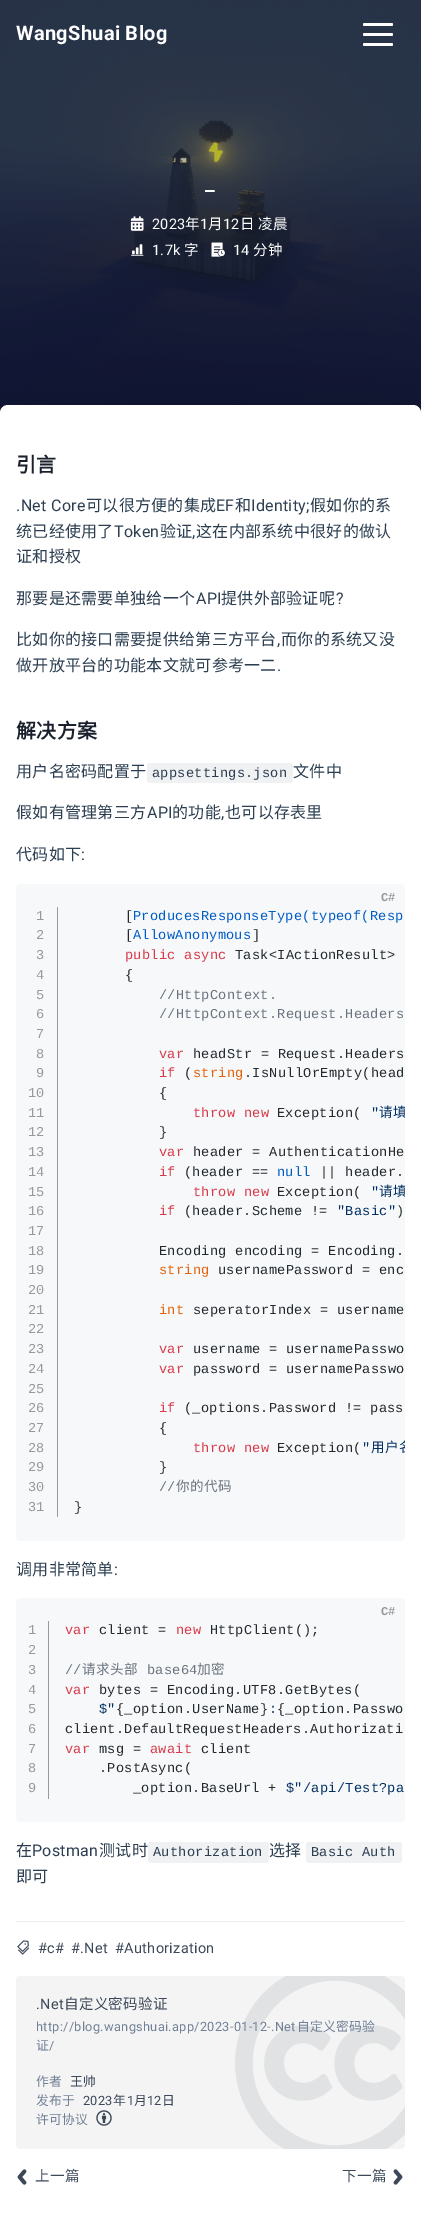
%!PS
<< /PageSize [421 2231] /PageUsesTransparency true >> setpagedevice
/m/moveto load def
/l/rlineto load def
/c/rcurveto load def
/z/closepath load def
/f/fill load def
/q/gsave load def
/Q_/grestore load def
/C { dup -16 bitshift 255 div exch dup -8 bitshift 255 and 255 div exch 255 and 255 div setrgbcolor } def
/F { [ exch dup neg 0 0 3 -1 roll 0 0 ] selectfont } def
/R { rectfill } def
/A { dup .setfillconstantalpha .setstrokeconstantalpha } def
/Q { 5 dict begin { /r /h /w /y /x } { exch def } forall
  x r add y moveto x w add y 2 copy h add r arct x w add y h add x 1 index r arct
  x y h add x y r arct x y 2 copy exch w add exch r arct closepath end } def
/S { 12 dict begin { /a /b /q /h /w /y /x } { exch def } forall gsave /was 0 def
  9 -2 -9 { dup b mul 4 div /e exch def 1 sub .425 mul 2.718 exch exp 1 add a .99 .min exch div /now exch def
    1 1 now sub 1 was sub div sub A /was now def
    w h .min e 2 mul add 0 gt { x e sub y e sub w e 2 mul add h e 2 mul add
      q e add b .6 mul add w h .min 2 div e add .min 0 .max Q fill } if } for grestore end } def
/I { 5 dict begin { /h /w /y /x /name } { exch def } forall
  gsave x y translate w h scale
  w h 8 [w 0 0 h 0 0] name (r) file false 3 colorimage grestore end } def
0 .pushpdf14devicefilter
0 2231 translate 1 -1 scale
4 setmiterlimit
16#FFFFFF C
0 0 421 2231 R
(1.rgb) 0 0 421 413 I
/Roboto-Bold 20 F
16 40 m .3 0 (WangShuai Blog) ashow
363 23 30 3 1.5 Q f
363 33 30 3 1.5 Q f
363 43 30 3 1.5 Q f
/Roboto-Medium 22 F
205 190 m .3 0 (_) ashow
(2.rgb) 130 216 14 15 I
/Roboto-Regular 14.5 F
152 229 m .3 0 (2023) ashow
/NotoSansCJKSC-Regular 14.5 F
185 229 m .3 0 (年) ashow
/Roboto-Regular 14.5 F
200 229 m .3 0 (1) ashow
/NotoSansCJKSC-Regular 14.5 F
208 229 m .3 0 (月) ashow
/Roboto-Regular 14.5 F
223 229 m .3 0 (12) ashow
/NotoSansCJKSC-Regular 14.5 F
240 229 m .3 0 (日 凌晨) ashow
(3.rgb) 131 244 13 12 I
/Roboto-Regular 14.5 F
152 255 m .3 0 (1.7k) ashow
/NotoSansCJKSC-Regular 14.5 F
184 255 m .3 0 (字) ashow
(4.rgb) 211 242 14 15 I
/Roboto-Regular 14.5 F
233 255 m .3 0 (14) ashow
/NotoSansCJKSC-Regular 14.5 F
253 255 m .3 0 (分钟) ashow
16#000000 C
0 422 421 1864 8 25 .19 S
16#FFFFFF C
0 405 421 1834 8 Q f
/NotoSansCJKSC-Bold 20 F
16#1A202C C
16 472 m .3 0 (引言) ashow
/Roboto-Regular 16 F
16#2C3E50 C
16 511 m .3 0 (.Net Core) ashow
/NotoSansCJKSC-Regular 16 F
86 511 m .3 0 (可以很方便的集成) ashow
/Roboto-Regular 16 F
216 511 m .3 0 (EF) ashow
/NotoSansCJKSC-Regular 16 F
235 511 m .3 0 (和) ashow
/Roboto-Regular 16 F
251 511 m .3 0 (Identity;) ashow
/NotoSansCJKSC-Regular 16 F
310 511 m .3 0 (假如你的系) ashow
16 537 m .3 0 (统已经使用了) ashow
/Roboto-Regular 16 F
114 537 m .3 0 (Token) ashow
/NotoSansCJKSC-Regular 16 F
160 537 m .3 0 (验证) ashow
/Roboto-Regular 16 F
192 537 m .3 0 (,) ashow
/NotoSansCJKSC-Regular 16 F
196 537 m .3 0 (这在内部系统中很好的做认) ashow
16 562 m .3 0 (证和授权) ashow
16 604 m .3 0 (那要是还需要单独给一个) ashow
/Roboto-Regular 16 F
196 604 m .3 0 (API) ashow
/NotoSansCJKSC-Regular 16 F
221 604 m .3 0 (提供外部验证呢) ashow
/Roboto-Regular 16 F
336 604 m .3 0 (?) ashow
/NotoSansCJKSC-Regular 16 F
16 645 m .3 0 (比如你的接口需要提供给第三方平台) ashow
/Roboto-Regular 16 F
277 645 m .3 0 (,) ashow
/NotoSansCJKSC-Regular 16 F
281 645 m .3 0 (而你的系统又没) ashow
16 671 m .3 0 (做开放平台的功能本文就可参考一二) ashow
/Roboto-Regular 16 F
277 671 m .3 0 (.) ashow
/NotoSansCJKSC-Bold 20 F
16#1A202C C
16 738 m .3 0 (解决方案) ashow
/NotoSansCJKSC-Regular 16 F
16#2C3E50 C
16 777 m .3 0 (用户名密码配置于) ashow
16#EFF1F3 C
147 763 146 20 3 Q f
/LiberationMono-Regular 13.6 F
16#2C3E50 C
152 777 m .3 0 (appsettings.json) ashow
/NotoSansCJKSC-Regular 16 F
293 777 m .3 0 (文件中) ashow
16 818 m .3 0 (假如有管理第三方) ashow
/Roboto-Regular 16 F
147 818 m .3 0 (API) ashow
/NotoSansCJKSC-Regular 16 F
172 818 m .3 0 (的功能) ashow
225 818 m .3 0 (也可以存表里) ashow
/Roboto-Regular 16 F
221 818 m .3 0 (,) ashow
/NotoSansCJKSC-Regular 16 F
16 860 m .3 0 (代码如下) ashow
/Roboto-Regular 16 F
81 860 m .3 0 (:) ashow
16#F6F8FA C
20 884 m 38 0 l 0 657 l -38 0 l -2 0 -4 -2 -4 -4 c 0 -649 l 0 -2 2 -4 4 -4 c z f
16#999999 C
57 907 1 610 R
/LiberationMono-Regular 13.6 F
36 920 m .3 0 (1) ashow
36 939 m .3 0 (2) ashow
36 959 m .3 0 (3) ashow
36 979 m .3 0 (4) ashow
36 999 m .3 0 (5) ashow
36 1018 m .3 0 (6) ashow
36 1038 m .3 0 (7) ashow
36 1058 m .3 0 (8) ashow
36 1077 m .3 0 (9) ashow
28 1097 m .3 0 (10) ashow
28 1117 m .3 0 (11) ashow
28 1136 m .3 0 (12) ashow
28 1156 m .3 0 (13) ashow
28 1176 m .3 0 (14) ashow
28 1196 m .3 0 (15) ashow
28 1215 m .3 0 (16) ashow
28 1235 m .3 0 (17) ashow
28 1255 m .3 0 (18) ashow
28 1274 m .3 0 (19) ashow
28 1294 m .3 0 (20) ashow
28 1314 m .3 0 (21) ashow
28 1333 m .3 0 (22) ashow
28 1353 m .3 0 (23) ashow
28 1373 m .3 0 (24) ashow
28 1393 m .3 0 (25) ashow
28 1412 m .3 0 (26) ashow
28 1432 m .3 0 (27) ashow
28 1452 m .3 0 (28) ashow
28 1471 m .3 0 (29) ashow
28 1491 m .3 0 (30) ashow
28 1511 m .3 0 (31) ashow
16#F6F8FA C
58 884 m 343 0 l 2 0 4 2 4 4 c 0 649 l 0 2 -2 4 -4 4 c -343 0 l z f
/LiberationMono-Bold 12 F
16#999999 C
381 901 m .3 0 (C#) ashow
/LiberationMono-Regular 13.6 F
16#24292E C
125 920 m .3 0 ([) ashow
16#005CC5 C
133 920 m .3 0 (ProducesResponseType\(typeof\(Resp) ashow
16#24292E C
125 939 m .3 0 ([) ashow
16#005CC5 C
133 939 m .3 0 (AllowAnonymous) ashow
16#24292E C
252 939 m .3 0 (]) ashow
16#D73A49 C
125 959 m .3 0 (public async) ashow
16#24292E C
235 959 m .3 0 (Task<IActionResult>) ashow
125 979 m .3 0 ({) ashow
16#6A737D C
159 999 m .3 0 (//HttpContext.) ashow
159 1018 m .3 0 (//HttpContext.Request.Headers) ashow
16#D73A49 C
159 1058 m .3 0 (var) ashow
16#24292E C
193 1058 m .3 0 (headStr = Request.Headers) ashow
16#D73A49 C
159 1077 m .3 0 (if) ashow
16#24292E C
184 1077 m .3 0 (\() ashow
16#E36209 C
193 1077 m .3 0 (string) ashow
16#24292E C
244 1077 m .3 0 (.IsNullOrEmpty\(head) ashow
159 1097 m .3 0 ({) ashow
16#D73A49 C
193 1117 m .3 0 (throw new) ashow
16#24292E C
277 1117 m .3 0 (Exception\() ashow
16#032F62 C
371 1117 m .3 0 (") ashow
q
16 884 389 657 4 Q clip newpath
/NotoSansCJKSC-Regular 13.6 F
379 1117 m .3 0 (请填) ashow
Q_
16#24292E C
159 1136 m .3 0 (}) ashow
16#D73A49 C
159 1156 m .3 0 (var) ashow
16#24292E C
193 1156 m .3 0 (header = AuthenticationHe) ashow
16#D73A49 C
159 1176 m .3 0 (if) ashow
16#24292E C
184 1176 m .3 0 (\(header ==) ashow
16#005CC5 C
277 1176 m .3 0 (null) ashow
16#24292E C
320 1176 m .3 0 (|| header.) ashow
16#D73A49 C
193 1196 m .3 0 (throw new) ashow
16#24292E C
277 1196 m .3 0 (Exception\() ashow
16#032F62 C
371 1196 m .3 0 (") ashow
q
16 884 389 657 4 Q clip newpath
/NotoSansCJKSC-Regular 13.6 F
379 1196 m .3 0 (请填) ashow
Q_
16#D73A49 C
159 1215 m .3 0 (if) ashow
16#24292E C
184 1215 m .3 0 (\(header.Scheme !=) ashow
16#032F62 C
337 1215 m .3 0 ("Basic") ashow
16#24292E C
396 1215 m .3 0 (\)) ashow
159 1255 m .3 0 (Encoding encoding = Encoding.) ashow
16#E36209 C
159 1274 m .3 0 (string) ashow
16#24292E C
218 1274 m .3 0 (usernamePassword = enc) ashow
16#E36209 C
159 1314 m .3 0 (int) ashow
16#24292E C
193 1314 m .3 0 (seperatorIndex = username) ashow
16#D73A49 C
159 1353 m .3 0 (var) ashow
16#24292E C
193 1353 m .3 0 (username = usernamePasswo) ashow
16#D73A49 C
159 1373 m .3 0 (var) ashow
16#24292E C
193 1373 m .3 0 (password = usernamePasswo) ashow
16#D73A49 C
159 1412 m .3 0 (if) ashow
16#24292E C
184 1412 m .3 0 (\(_options.Password != pass) ashow
159 1432 m .3 0 ({) ashow
16#D73A49 C
193 1452 m .3 0 (throw new) ashow
16#24292E C
277 1452 m .3 0 (Exception\() ashow
16#032F62 C
362 1452 m .3 0 (") ashow
q
16 884 389 657 4 Q clip newpath
/NotoSansCJKSC-Regular 13.6 F
371 1452 m .3 0 (用户名) ashow
Q_
16#24292E C
159 1471 m .3 0 (}) ashow
16#6A737D C
159 1491 m .3 0 (//) ashow
/NotoSansCJKSC-Regular 13.6 F
176 1491 m .3 0 (你的代码) ashow
/LiberationMono-Regular 13.6 F
16#24292E C
74 1511 m .3 0 (}) ashow
/NotoSansCJKSC-Regular 16 F
16#2C3E50 C
16 1575 m .3 0 (调用非常简单) ashow
/Roboto-Regular 16 F
114 1575 m .3 0 (:) ashow
16#F6F8FA C
20 1598 m 29 0 l 0 224 l -29 0 l -2 0 -4 -2 -4 -4 c 0 -216 l 0 -2 2 -4 4 -4 c z f
16#999999 C
48 1621 1 178 R
/LiberationMono-Regular 13.6 F
28 1634 m .3 0 (1) ashow
28 1654 m .3 0 (2) ashow
28 1674 m .3 0 (3) ashow
28 1694 m .3 0 (4) ashow
28 1713 m .3 0 (5) ashow
28 1733 m .3 0 (6) ashow
28 1753 m .3 0 (7) ashow
28 1772 m .3 0 (8) ashow
28 1792 m .3 0 (9) ashow
16#F6F8FA C
49 1598 m 352 0 l 2 0 4 2 4 4 c 0 216 l 0 2 -2 4 -4 4 c -352 0 l z f
/LiberationMono-Bold 12 F
16#999999 C
381 1615 m .3 0 (C#) ashow
/LiberationMono-Regular 13.6 F
16#D73A49 C
65 1634 m .3 0 (var) ashow
16#24292E C
99 1634 m .3 0 (client =) ashow
16#D73A49 C
176 1634 m .3 0 (new) ashow
16#24292E C
210 1634 m .3 0 (HttpClient\(\);) ashow
16#6A737D C
65 1674 m .3 0 (//) ashow
/NotoSansCJKSC-Regular 13.6 F
82 1674 m .3 0 (请求头部) ashow
/LiberationMono-Regular 13.6 F
147 1674 m .3 0 (base64) ashow
/NotoSansCJKSC-Regular 13.6 F
197 1674 m .3 0 (加密) ashow
/LiberationMono-Regular 13.6 F
16#D73A49 C
65 1694 m .3 0 (var) ashow
16#24292E C
99 1694 m .3 0 (bytes = Encoding.UTF8.GetBytes\() ashow
16#032F62 C
99 1713 m .3 0 ($") ashow
16#24292E C
116 1713 m .3 0 ({_option.UserName} {_option.Passwo) ashow
16#032F62 C
269 1713 m .3 0 (:) ashow
16#24292E C
65 1733 m .3 0 (client.DefaultRequestHeaders.Authorizati) ashow
16#D73A49 C
65 1753 m .3 0 (var) ashow
16#24292E C
99 1753 m .3 0 (msg =) ashow
16#D73A49 C
150 1753 m .3 0 (await) ashow
16#24292E C
201 1753 m .3 0 (client) ashow
99 1772 m .3 0 (.PostAsync\() ashow
133 1792 m .3 0 (_option.BaseUrl +) ashow
16#032F62 C
286 1792 m .3 0 ($"/api/Test?pa) ashow
/NotoSansCJKSC-Regular 16 F
16#2C3E50 C
16 1856 m .3 0 (在) ashow
/Roboto-Regular 16 F
32 1856 m .3 0 (Postman) ashow
/NotoSansCJKSC-Regular 16 F
99 1856 m .3 0 (测试时) ashow
16#EFF1F3 C
148 1842 121 21 3 Q f
/LiberationMono-Regular 13.6 F
16#2C3E50 C
153 1856 m .3 0 (Authorization) ashow
/NotoSansCJKSC-Regular 16 F
269 1856 m .3 0 (选择) ashow
16#EFF1F3 C
306 1842 96 21 3 Q f
/LiberationMono-Regular 13.6 F
16#2C3E50 C
311 1856 m .3 0 (Basic Auth) ashow
/NotoSansCJKSC-Regular 16 F
16 1882 m .3 0 (即可) ashow
16#EAECEF C
16 1921 389 1 R
(5.rgb) 17 1940 13 15 I
/Roboto-Regular 14.5 F
16#3C4858 C
38 1953 m .3 0 (#c#) ashow
71 1953 m .3 0 (#.Net) ashow
115 1953 m .3 0 (#Authorization) ashow
16#F4F4F4 C
16 1976 389 173 4 Q f
(6.rgb) 235 1976 170 173 I
16#3C4858 C
36 2009 m .3 0 (.Net) ashow
/NotoSansCJKSC-Regular 14.5 F
64 2009 m .3 0 (自定义密码验证) ashow
/Roboto-Regular 12.8 F
16#718096 C
36 2031 m .3 0 (http://blog.wangshuai.app/2023-01-12-.Net) ashow
/NotoSansCJKSC-Regular 12.8 F
297 2031 m .3 0 (自定义密码验) ashow
36 2050 m .3 0 (证) ashow
/Roboto-Regular 12.8 F
49 2050 m .3 0 (/) ashow
/NotoSansCJKSC-Regular 12.8 F
36 2086 m .3 0 (作者) ashow
16#3C4858 C
70 2086 m .3 0 (王帅) ashow
16#718096 C
36 2105 m .3 0 (发布于) ashow
/Roboto-Regular 12.8 F
16#3C4858 C
83 2105 m .3 0 (2023) ashow
/NotoSansCJKSC-Regular 12.8 F
113 2105 m .3 0 (年) ashow
/Roboto-Regular 12.8 F
127 2105 m .3 0 (1) ashow
/NotoSansCJKSC-Regular 12.8 F
134 2105 m .3 0 (月) ashow
/Roboto-Regular 12.8 F
147 2105 m .3 0 (12) ashow
/NotoSansCJKSC-Regular 12.8 F
162 2105 m .3 0 (日) ashow
16#718096 C
36 2124 m .3 0 (许可协议) ashow
(7.rgb) 96 2110 16 16 I
(8.rgb) 17 2169 10 16 I
/NotoSansCJKSC-Regular 14.5 F
16#3C4858 C
35 2181 m .3 0 (上一篇) ashow
342 2181 m .3 0 (下一篇) ashow
(9.rgb) 393 2169 10 16 I
.poppdf14devicefilter showpage
